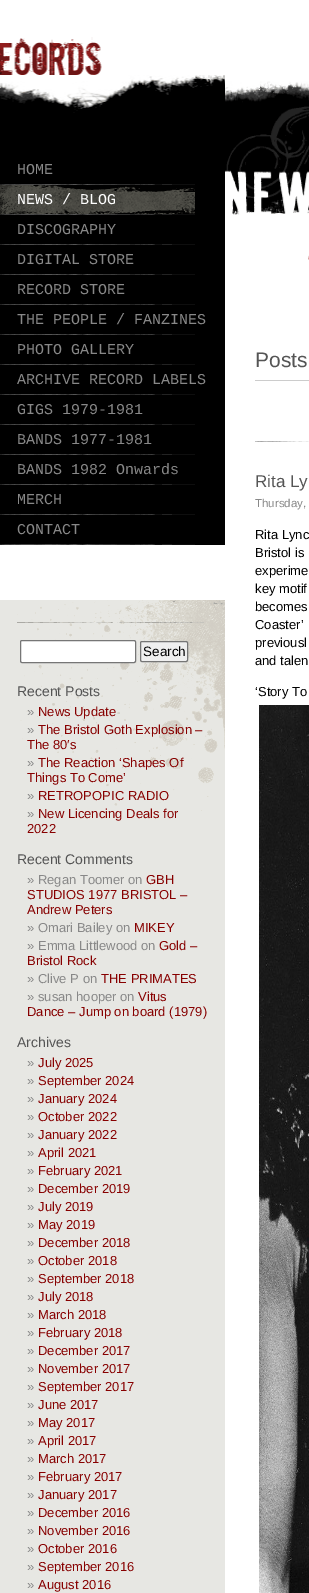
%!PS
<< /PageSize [309 1593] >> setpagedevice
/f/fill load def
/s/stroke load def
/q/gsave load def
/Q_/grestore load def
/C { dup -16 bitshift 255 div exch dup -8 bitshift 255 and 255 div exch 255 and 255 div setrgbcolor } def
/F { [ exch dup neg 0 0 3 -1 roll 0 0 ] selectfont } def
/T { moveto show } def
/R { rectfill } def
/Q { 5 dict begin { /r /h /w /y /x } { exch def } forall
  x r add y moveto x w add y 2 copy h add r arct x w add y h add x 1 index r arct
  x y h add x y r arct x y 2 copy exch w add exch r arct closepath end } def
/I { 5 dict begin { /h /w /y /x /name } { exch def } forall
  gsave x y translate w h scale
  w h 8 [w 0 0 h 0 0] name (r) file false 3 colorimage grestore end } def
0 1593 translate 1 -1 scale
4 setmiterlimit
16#FFFFFF C
0 0 309 1593 R
(1.rgb) 0 37 309 268 I
(2.rgb) 0 184 195 1 I
/LiberationMono-Regular 15 F
16#888888 C
(HOME) 17 174 T
(2.rgb) 0 214 195 1 I
(3.rgb) 0 185 195 29 I
16#FFFFFF C
(NEWS / BLOG) 17 204 T
(2.rgb) 0 244 195 1 I
16#888888 C
(DISCOGRAPHY) 17 234 T
(2.rgb) 0 274 195 1 I
(DIGITAL STORE) 17 264 T
(2.rgb) 0 304 195 1 I
(RECORD STORE) 17 294 T
16#000000 C
0 305 225 240 R
(2.rgb) 0 334 195 1 I
16#888888 C
(THE PEOPLE / FANZINES) 17 324 T
(2.rgb) 0 364 195 1 I
(PHOTO GALLERY) 17 354 T
(2.rgb) 0 394 195 1 I
(ARCHIVE RECORD LABELS) 17 384 T
(2.rgb) 0 424 195 1 I
(GIGS 1979-1981) 17 414 T
(2.rgb) 0 454 195 1 I
(BANDS 1977-1981) 17 444 T
(2.rgb) 0 484 195 1 I
(BANDS 1982 Onwards) 17 474 T
(2.rgb) 0 514 195 1 I
(MERCH) 17 504 T
(2.rgb) 0 544 195 1 I
(CONTACT) 17 534 T
16#E7E7E3 C
0 600 225 993 R
(4.rgb) 17 600 208 211 I
16#FFFFFF C
20.5 640.5 115 22 1.5 Q q f Q_
16#767676 C
s
16#EFEFEF C
140.5 641.5 47 20 1.5 Q q f Q_
16#767676 C
s
/LiberationSans-Regular 13.5 F
16#000000 C
(Search) 143 656 T
/LiberationSans-Regular 14 F
16#555555 C
(Recent Posts) 17 696 T
/LiberationSans-Regular 13 F
16#888888 C
(») 27 716 T
16#870000 C
(News Update) 38 716 T
16#888888 C
(») 27 734 T
16#870000 C
(The Bristol Goth Explosion –) 38 734 T
(The 80′s) 27 749 T
16#888888 C
(») 27 767 T
16#870000 C
(The Reaction ‘Shapes Of) 38 767 T
(Things To Come’) 27 782 T
16#888888 C
(») 27 800 T
16#870000 C
(RETROPOPIC RADIO) 38 800 T
16#888888 C
(») 27 818 T
16#870000 C
(New Licencing Deals for) 38 818 T
(2022) 27 833 T
/LiberationSans-Regular 14 F
16#555555 C
(Recent Comments) 17 864 T
/LiberationSans-Regular 13 F
16#888888 C
(» Regan Toomer on) 27 884 T
16#870000 C
(GBH) 146 884 T
(STUDIOS 1977 BRISTOL –) 27 899 T
(Andrew Peters) 27 914 T
16#888888 C
(» Omari Bailey on) 27 932 T
16#870000 C
(MIKEY) 134 932 T
16#888888 C
(» Emma Littlewood on) 27 950 T
16#870000 C
(Gold –) 159 950 T
(Bristol Rock) 27 965 T
16#888888 C
(» Clive P on) 27 983 T
16#870000 C
(THE PRIMATES) 101 983 T
16#888888 C
(» susan hooper on) 27 1001 T
16#870000 C
(Vitus) 138 1001 T
(Dance – Jump on board \(1979\)) 27 1016 T
/LiberationSans-Regular 14 F
16#555555 C
(Archives) 17 1047 T
/LiberationSans-Regular 13 F
16#888888 C
(») 27 1067 T
16#870000 C
(July 2025) 38 1067 T
16#888888 C
(») 27 1085 T
16#870000 C
(September 2024) 38 1085 T
16#888888 C
(») 27 1103 T
16#870000 C
(January 2024) 38 1103 T
16#888888 C
(») 27 1121 T
16#870000 C
(October 2022) 38 1121 T
16#888888 C
(») 27 1139 T
16#870000 C
(January 2022) 38 1139 T
16#888888 C
(») 27 1157 T
16#870000 C
(April 2021) 38 1157 T
16#888888 C
(») 27 1175 T
16#870000 C
(February 2021) 38 1175 T
16#888888 C
(») 27 1193 T
16#870000 C
(December 2019) 38 1193 T
16#888888 C
(») 27 1211 T
16#870000 C
(July 2019) 38 1211 T
16#888888 C
(») 27 1229 T
16#870000 C
(May 2019) 38 1229 T
16#888888 C
(») 27 1247 T
16#870000 C
(December 2018) 38 1247 T
16#888888 C
(») 27 1265 T
16#870000 C
(October 2018) 38 1265 T
16#888888 C
(») 27 1283 T
16#870000 C
(September 2018) 38 1283 T
16#888888 C
(») 27 1301 T
16#870000 C
(July 2018) 38 1301 T
16#888888 C
(») 27 1319 T
16#870000 C
(March 2018) 38 1319 T
16#888888 C
(») 27 1337 T
16#870000 C
(February 2018) 38 1337 T
16#888888 C
(») 27 1355 T
16#870000 C
(December 2017) 38 1355 T
16#888888 C
(») 27 1373 T
16#870000 C
(November 2017) 38 1373 T
16#888888 C
(») 27 1391 T
16#870000 C
(September 2017) 38 1391 T
16#888888 C
(») 27 1409 T
16#870000 C
(June 2017) 38 1409 T
16#888888 C
(») 27 1427 T
16#870000 C
(May 2017) 38 1427 T
16#888888 C
(») 27 1445 T
16#870000 C
(April 2017) 38 1445 T
16#888888 C
(») 27 1463 T
16#870000 C
(March 2017) 38 1463 T
16#888888 C
(») 27 1481 T
16#870000 C
(February 2017) 38 1481 T
16#888888 C
(») 27 1499 T
16#870000 C
(January 2017) 38 1499 T
16#888888 C
(») 27 1517 T
16#870000 C
(December 2016) 38 1517 T
16#888888 C
(») 27 1535 T
16#870000 C
(November 2016) 38 1535 T
16#888888 C
(») 27 1553 T
16#870000 C
(October 2016) 38 1553 T
16#888888 C
(») 27 1571 T
16#870000 C
(September 2016) 38 1571 T
16#888888 C
(») 27 1589 T
16#870000 C
(August 2016) 38 1589 T
16#FFFFFF C
225 75 84 230 R
(5.rgb) 225 81 84 179 I
/LiberationSans-Regular 21 F
16#555555 C
(Posts) 255 367 T
16#CCCCCC C
255 380 54 1 R
(6.rgb) 255 441 54 1 I
/LiberationSans-Regular 17 F
16#555555 C
(Rita Ly) 255 487 T
/LiberationSans-Regular 11.5 F
16#888888 C
(Thursday,) 255 507 T
/LiberationSans-Regular 13 F
16#000000 C
(Rita Lync) 255 539 T
(Bristol is) 255 557 T
(experime) 255 575 T
(key motif) 255 593 T
(becomes) 255 611 T
(Coaster’) 255 629 T
(previousl) 255 647 T
(and talen) 255 665 T
(‘Story To) 255 696 T
(7.rgb) 259 705 50 888 I
showpage
